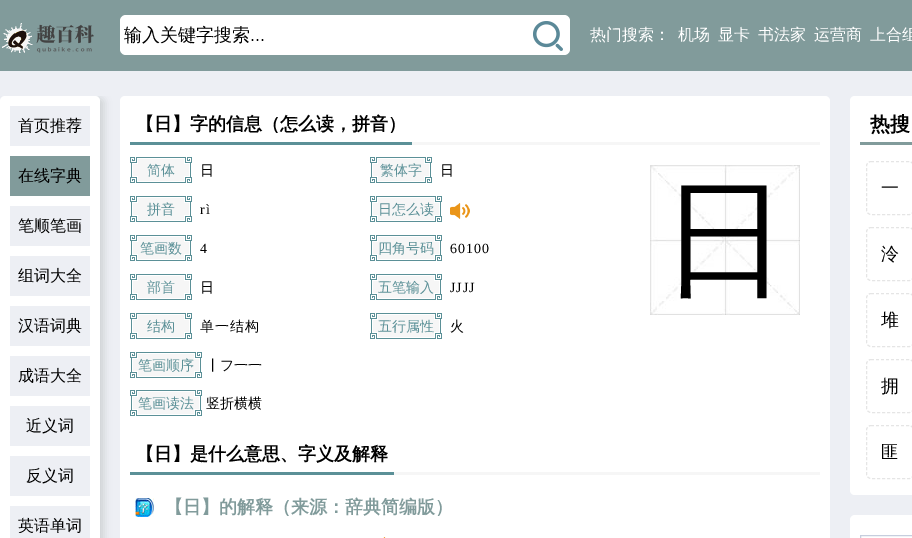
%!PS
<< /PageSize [912 538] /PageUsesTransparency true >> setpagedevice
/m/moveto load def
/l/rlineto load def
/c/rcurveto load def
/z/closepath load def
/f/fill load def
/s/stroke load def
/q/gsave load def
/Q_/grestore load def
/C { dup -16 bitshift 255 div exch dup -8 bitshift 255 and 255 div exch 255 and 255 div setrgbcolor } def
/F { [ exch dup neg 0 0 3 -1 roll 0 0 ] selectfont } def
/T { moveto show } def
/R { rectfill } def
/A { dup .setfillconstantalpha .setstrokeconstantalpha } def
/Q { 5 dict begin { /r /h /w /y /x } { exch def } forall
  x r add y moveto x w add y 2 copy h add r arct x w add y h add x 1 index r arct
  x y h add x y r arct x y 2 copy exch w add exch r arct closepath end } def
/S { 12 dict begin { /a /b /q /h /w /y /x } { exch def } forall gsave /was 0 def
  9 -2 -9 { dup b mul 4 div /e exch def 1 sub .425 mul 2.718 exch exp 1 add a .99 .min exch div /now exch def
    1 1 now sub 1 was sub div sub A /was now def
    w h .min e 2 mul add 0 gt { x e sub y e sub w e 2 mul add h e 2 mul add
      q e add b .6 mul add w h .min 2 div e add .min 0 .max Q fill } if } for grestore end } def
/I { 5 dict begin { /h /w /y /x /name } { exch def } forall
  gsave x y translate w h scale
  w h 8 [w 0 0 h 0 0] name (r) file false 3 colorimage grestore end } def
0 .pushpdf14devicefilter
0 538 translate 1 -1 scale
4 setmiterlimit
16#EDEFF4 C
0 0 912 538 R
16#819B9B C
0 0 912 71 R
(1.rgb) 2 23 92 30 I
16#FFFFFF C
120 15 450 40 6 Q f
/WenQuanYiZenHei-Medium 18 F
16#000000 C
(输入关键字搜索) 124 41 T
/LiberationSans-Regular 18 F
(...) 250 41 T
(2.rgb) 533 21 30 30 I
/WenQuanYiZenHei-Medium 16 F
16#FFFFFF C
(热门搜索：) 590 40 T
(机场) 678 40 T
(显卡) 718 40 T
(书法家) 758 40 T
(运营商) 814 40 T
(上合组) 870 40 T
q
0 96 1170 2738 rectclip
16#000D00 C
4 98 100 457 5 4 .12 S
Q_
0 96 100 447 5 Q f
16#EDEFF4 C
10 106 80 40 R
16#000000 C
(首页推荐) 18 131 T
16#819B9B C
10 156 80 40 R
16#000000 C
(在线字典) 18 181 T
16#EDEFF4 C
10 206 80 40 R
16#000000 C
(笔顺笔画) 18 231 T
16#EDEFF4 C
10 256 80 40 R
16#000000 C
(组词大全) 18 281 T
16#EDEFF4 C
10 306 80 40 R
16#000000 C
(汉语词典) 18 331 T
16#EDEFF4 C
10 356 80 40 R
16#000000 C
(成语大全) 18 381 T
16#EDEFF4 C
10 406 80 40 R
16#000000 C
(近义词) 26 431 T
16#EDEFF4 C
10 456 80 40 R
16#000000 C
(反义词) 26 481 T
16#EDEFF4 C
10 506 80 32 R
16#000000 C
(英语单词) 18 531 T
16#FFFFFF C
120 96 710 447 5 Q f
16#F6F6F6 C
412 142 408 3 R
16#5B9097 C
130 142 282 3 R
/WenQuanYiZenHei-Bold 18 F
16#000000 C
(【日】字的信息（怎么读，拼音）) 136 130 T
(3.rgb) 130 157 62 26 I
/WenQuanYiZenHei-Medium 14 F
16#5B9097 C
(简体) 147 175 T
16#000000 C
200 175 m 1 0 (日) ashow
(3.rgb) 370 157 62 26 I
16#5B9097 C
(繁体字) 380 175 T
16#000000 C
440 175 m 1 0 (日) ashow
(3.rgb) 130 196 62 26 I
16#5B9097 C
(拼音) 147 214 T
/LiberationSerif-Regular 14 F
16#000000 C
200 214 m 1 0 (rì) ashow
(4.rgb) 370 196 72 26 I
/WenQuanYiZenHei-Medium 14 F
16#5B9097 C
(日怎么读) 378 214 T
(5.rgb) 450 203 20 16 I
(3.rgb) 130 235 62 26 I
(笔画数) 140 253 T
/LiberationSerif-Regular 14 F
16#000000 C
200 253 m 1 0 (4) ashow
(4.rgb) 370 235 72 26 I
/WenQuanYiZenHei-Medium 14 F
16#5B9097 C
(四角号码) 378 253 T
/LiberationSerif-Regular 14 F
16#000000 C
450 253 m 1 0 (60100) ashow
(3.rgb) 130 274 62 26 I
/WenQuanYiZenHei-Medium 14 F
16#5B9097 C
(部首) 147 292 T
16#000000 C
200 292 m 1 0 (日) ashow
(4.rgb) 370 274 72 26 I
16#5B9097 C
(五笔输入) 378 292 T
/LiberationSerif-Regular 14 F
16#000000 C
450 292 m 1 0 (JJJJ) ashow
(3.rgb) 130 313 62 26 I
/WenQuanYiZenHei-Medium 14 F
16#5B9097 C
(结构) 147 331 T
16#000000 C
200 331 m 1 0 (单一结构) ashow
(4.rgb) 370 313 72 26 I
16#5B9097 C
(五行属性) 378 331 T
16#000000 C
450 331 m 1 0 (火) ashow
(4.rgb) 130 352 72 26 I
16#5B9097 C
(笔画顺序) 138 370 T
16#000000 C
(丨フ一一) 206 370 T
(4.rgb) 130 390 72 26 I
16#5B9097 C
(笔画读法) 138 408 T
16#000000 C
(竖折横横) 206 408 T
(6.rgb) 650 165 150 150 I
/WenQuanYiZenHei-Medium 128 F
(日) 661 283 T
16#F6F6F6 C
394 472 426 3 R
16#5B9097 C
130 472 264 3 R
/WenQuanYiZenHei-Bold 18 F
16#000000 C
(【日】是什么意思、字义及解释) 136 460 T
(7.rgb) 135 498 19 19 I
16#819B9B C
(【日】的解释（来源：辞典简编版）) 165 513 T
(8.rgb) 383 537 3 1 I
16#FFFFFF C
855 96 m 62 0 l 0 399 l -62 0 l -3 0 -5 -2 -5 -5 c 0 -389 l 0 -3 2 -5 5 -5 c z f
16#819B9B C
860 142 52 3 R
/WenQuanYiZenHei-Bold 20 F
16#000000 C
(热搜) 870 131 T
16#E5E5E5 C
[3 2] 0 setdash
871 161.5 m 38 0 l 2.5 0 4.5 2 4.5 4.5 c 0 44 l 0 2.5 -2 4.5 -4.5 4.5 c -38 0 l -2.5 0 -4.5 -2 -4.5 -4.5 c 0 -44 l 0 -2.5 2 -4.5 4.5 -4.5 c z s
/WenQuanYiZenHei-Medium 18 F
16#000000 C
(一) 881 194 T
16#E5E5E5 C
871 227.5 m 38 0 l 2.5 0 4.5 2 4.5 4.5 c 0 44 l 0 2.5 -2 4.5 -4.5 4.5 c -38 0 l -2.5 0 -4.5 -2 -4.5 -4.5 c 0 -44 l 0 -2.5 2 -4.5 4.5 -4.5 c z s
16#000000 C
(泠) 881 260 T
16#E5E5E5 C
871 293.5 m 38 0 l 2.5 0 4.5 2 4.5 4.5 c 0 44 l 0 2.5 -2 4.5 -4.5 4.5 c -38 0 l -2.5 0 -4.5 -2 -4.5 -4.5 c 0 -44 l 0 -2.5 2 -4.5 4.5 -4.5 c z s
16#000000 C
(堆) 881 326 T
16#E5E5E5 C
871 359.5 m 38 0 l 2.5 0 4.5 2 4.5 4.5 c 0 44 l 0 2.5 -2 4.5 -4.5 4.5 c -38 0 l -2.5 0 -4.5 -2 -4.5 -4.5 c 0 -44 l 0 -2.5 2 -4.5 4.5 -4.5 c z s
16#000000 C
(拥) 881 392 T
16#E5E5E5 C
871 425.5 m 38 0 l 2.5 0 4.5 2 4.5 4.5 c 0 44 l 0 2.5 -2 4.5 -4.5 4.5 c -38 0 l -2.5 0 -4.5 -2 -4.5 -4.5 c 0 -44 l 0 -2.5 2 -4.5 4.5 -4.5 c z s
16#000000 C
(匪) 881 458 T
16#FFFFFF C
850 515 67 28 5 Q f
16#C6CEDE C
[] 0 setdash
860.5 535.5 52 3 rectstroke
.poppdf14devicefilter showpage
